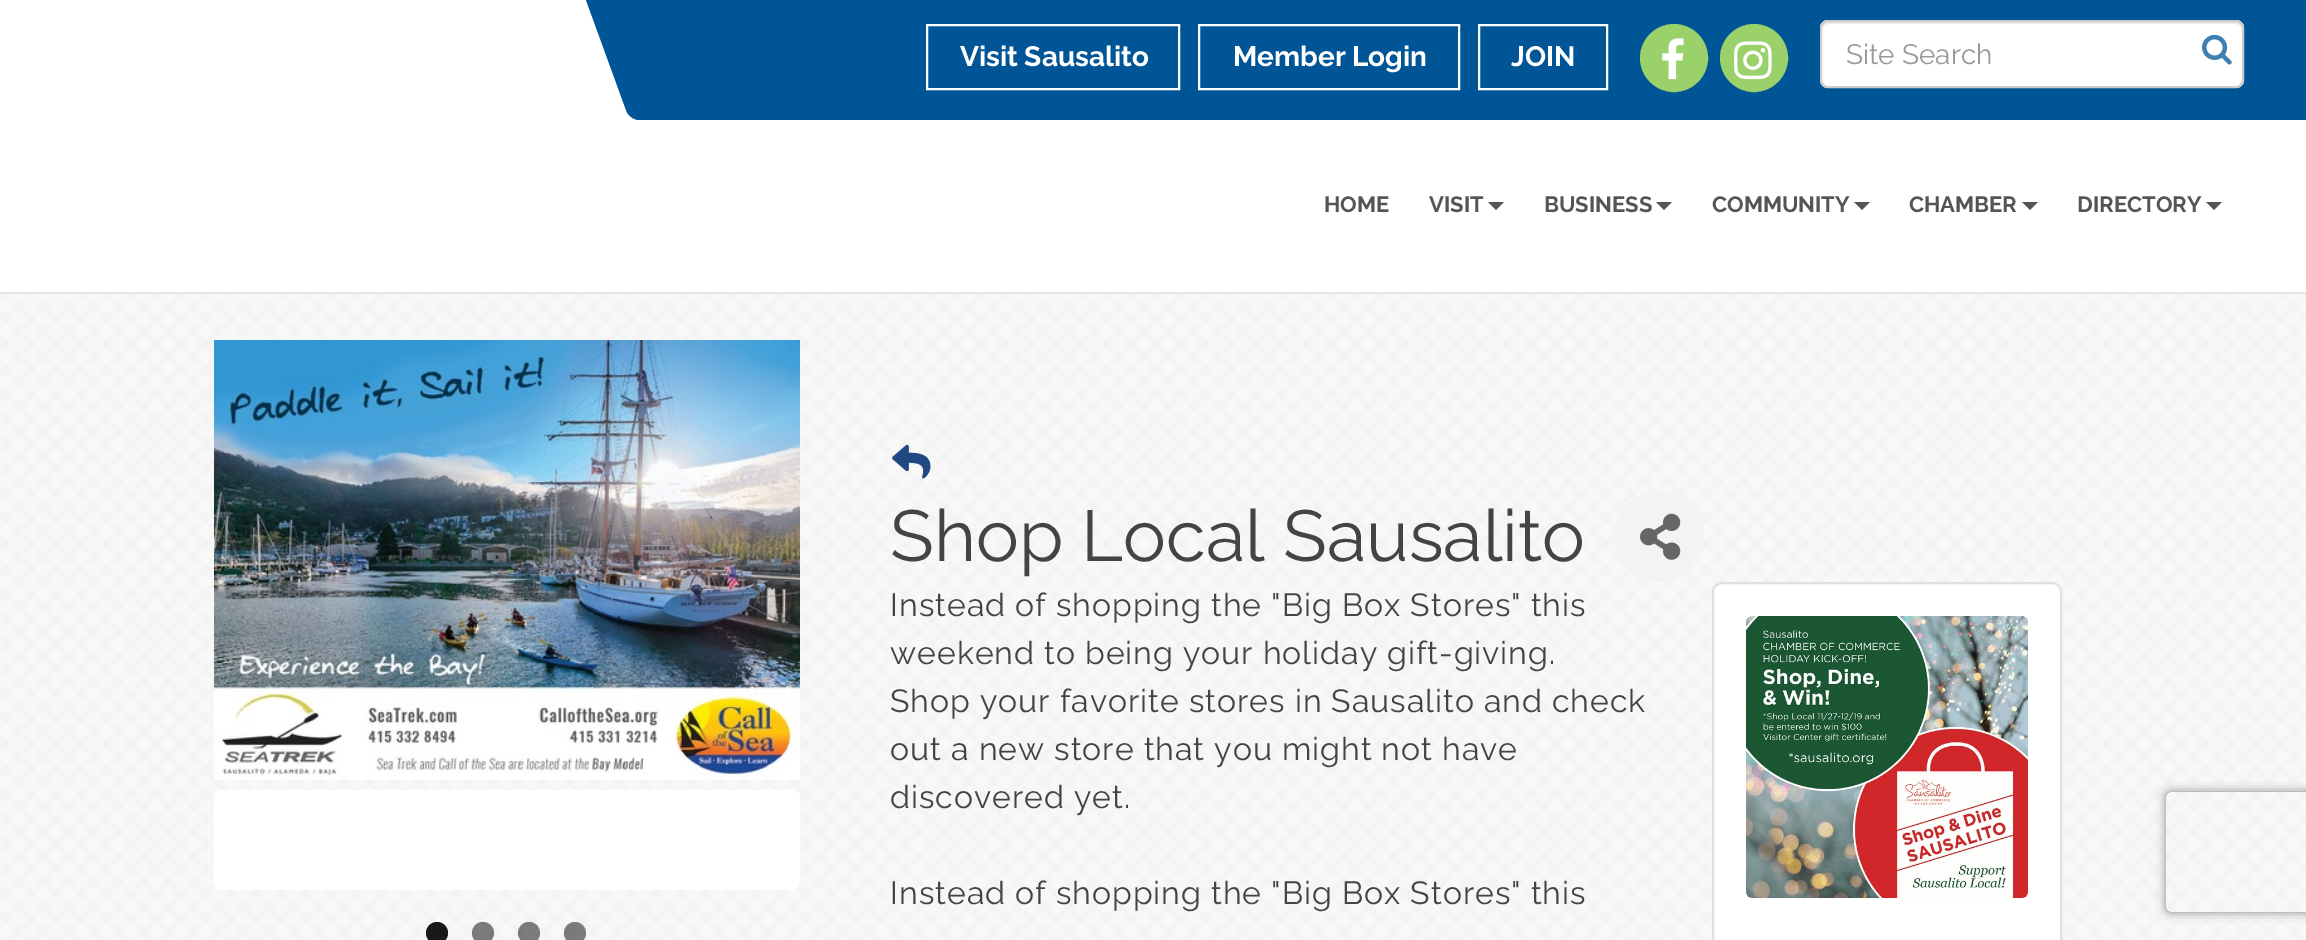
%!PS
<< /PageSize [2306 940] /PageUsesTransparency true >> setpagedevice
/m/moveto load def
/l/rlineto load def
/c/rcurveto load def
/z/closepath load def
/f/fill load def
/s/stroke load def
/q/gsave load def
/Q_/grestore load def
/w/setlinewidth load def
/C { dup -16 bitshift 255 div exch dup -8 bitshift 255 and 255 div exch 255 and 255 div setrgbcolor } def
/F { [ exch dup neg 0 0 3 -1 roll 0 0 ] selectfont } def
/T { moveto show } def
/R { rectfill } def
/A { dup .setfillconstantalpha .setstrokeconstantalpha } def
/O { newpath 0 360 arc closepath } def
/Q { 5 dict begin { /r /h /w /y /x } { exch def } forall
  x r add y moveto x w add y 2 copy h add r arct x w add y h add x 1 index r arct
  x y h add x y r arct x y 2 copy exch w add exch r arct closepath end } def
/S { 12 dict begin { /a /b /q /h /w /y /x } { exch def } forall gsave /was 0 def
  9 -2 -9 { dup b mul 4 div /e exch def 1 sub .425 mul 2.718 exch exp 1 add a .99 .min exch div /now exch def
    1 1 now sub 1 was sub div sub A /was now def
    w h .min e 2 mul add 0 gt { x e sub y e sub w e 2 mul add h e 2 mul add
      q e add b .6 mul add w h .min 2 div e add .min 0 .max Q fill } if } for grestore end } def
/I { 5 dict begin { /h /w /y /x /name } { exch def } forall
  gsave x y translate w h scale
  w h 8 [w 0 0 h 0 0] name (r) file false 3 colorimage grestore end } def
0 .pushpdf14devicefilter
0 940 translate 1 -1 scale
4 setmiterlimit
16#F3F3F3 C
0 0 2306 940 R
(1.rgb) 0 294 2306 646 I
16#FFFFFF C
0 0 2306 292 R
16#E6E6E6 C
0 292 2306 2 R
16#005596 C
586 0 m 1636 0 l 44 120 l -1627 0 l -5 0 -11 -4 -13 -10 c z f
16#FFFFFF C
2 w
927 25 252 64 rectstroke
/Raleway-Bold 28 F
(Visit Sausalito) 960 66 T
1199 25 260 64 rectstroke
(Member Login) 1233 66 T
1479 25 128 64 rectstroke
(JOIN) 1511 66 T
16#9BD16A C
1674 58 33 O q f Q_
s
(2.rgb) 1662 38 22 42 I
1754 58 33 O q f Q_
s
(3.rgb) 1734 41 38 39 I
16#005596 C
2220 0 m 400 0 l 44 120 l -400 0 l z f
16#FFFFFF C
1820 20 424 68 8 Q f
16#ECECEC C
1828 24 m 408 0 l 3 0 6 3 6 6 c 0 -2 l 0 -3 -3 -6 -6 -6 c -408 0 l -3 0 -6 3 -6 6 c 0 2 l 0 -3 3 -6 6 -6 c z f
16#CCCCCC C
1821 21 422 66 7 Q s
/Raleway-Regular 28 F
16#999999 C
(Site Search) 1846 64 T
(4.rgb) 2202 34 30 31 I
/Raleway-Bold 22 F
16#555555 C
(HOME) 1324 212 T
(VISIT) 1429 212 T
1488 202 m 16 0 l -8 8 l z f
(BUSINESS) 1544 212 T
1656 202 m 16 0 l -8 8 l z f
(COMMUNITY) 1712 212 T
1854 202 m 16 0 l -8 8 l z f
(CHAMBER) 1909 212 T
2022 202 m 16 0 l -8 8 l z f
(DIRECTORY) 2077 212 T
2206 202 m 16 0 l -8 8 l z f
(5.rgb) 214 340 586 440 I
16#FFFFFF C
214 790 586 100 8 Q f
0.9 A
16#000000 C
437 933 11 O f
0.5 A
483 933 11 O f
529 933 11 O f
575 933 11 O f
1 A
(6.rgb) 892 444 39 35 I
/Raleway-Regular 72 F
16#444444 C
(Shop Local Sausalito) 890 561 T
16#F3F3F3 C
1659 537 45 O f
(7.rgb) 1640 513 41 47 I
/Raleway-Regular 32 F
16#444444 C
890 616 m 1 0 (Instead of shopping the "Big Box Stores" this) ashow
890 664 m 1 0 (weekend to being your holiday gift-giving.) ashow
890 712 m 1 0 (Shop your favorite stores in Sausalito and check) ashow
890 760 m 1 0 (out a new store that you might not have) ashow
890 808 m 1 0 (discovered yet.) ashow
890 904 m 1 0 (Instead of shopping the "Big Box Stores" this) ashow
16#FFFFFF C
1712 582 350 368 10 Q f
0.12 A
16#000000 C
1713 583 348 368 9 Q s
1 A
(8.rgb) 1746 616 282 282 I
q
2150 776 m 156 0 l 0 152 l -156 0 l z 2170 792 m 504 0 l 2 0 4 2 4 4 c 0 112 l 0 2 -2 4 -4 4 c -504 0 l -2 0 -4 -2 -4 -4 c 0 -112 l 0 -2 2 -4 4 -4 c z eoclip newpath
16#808080 C
2166 792 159 120 4 5 1 S
Q_
.poppdf14devicefilter showpage
